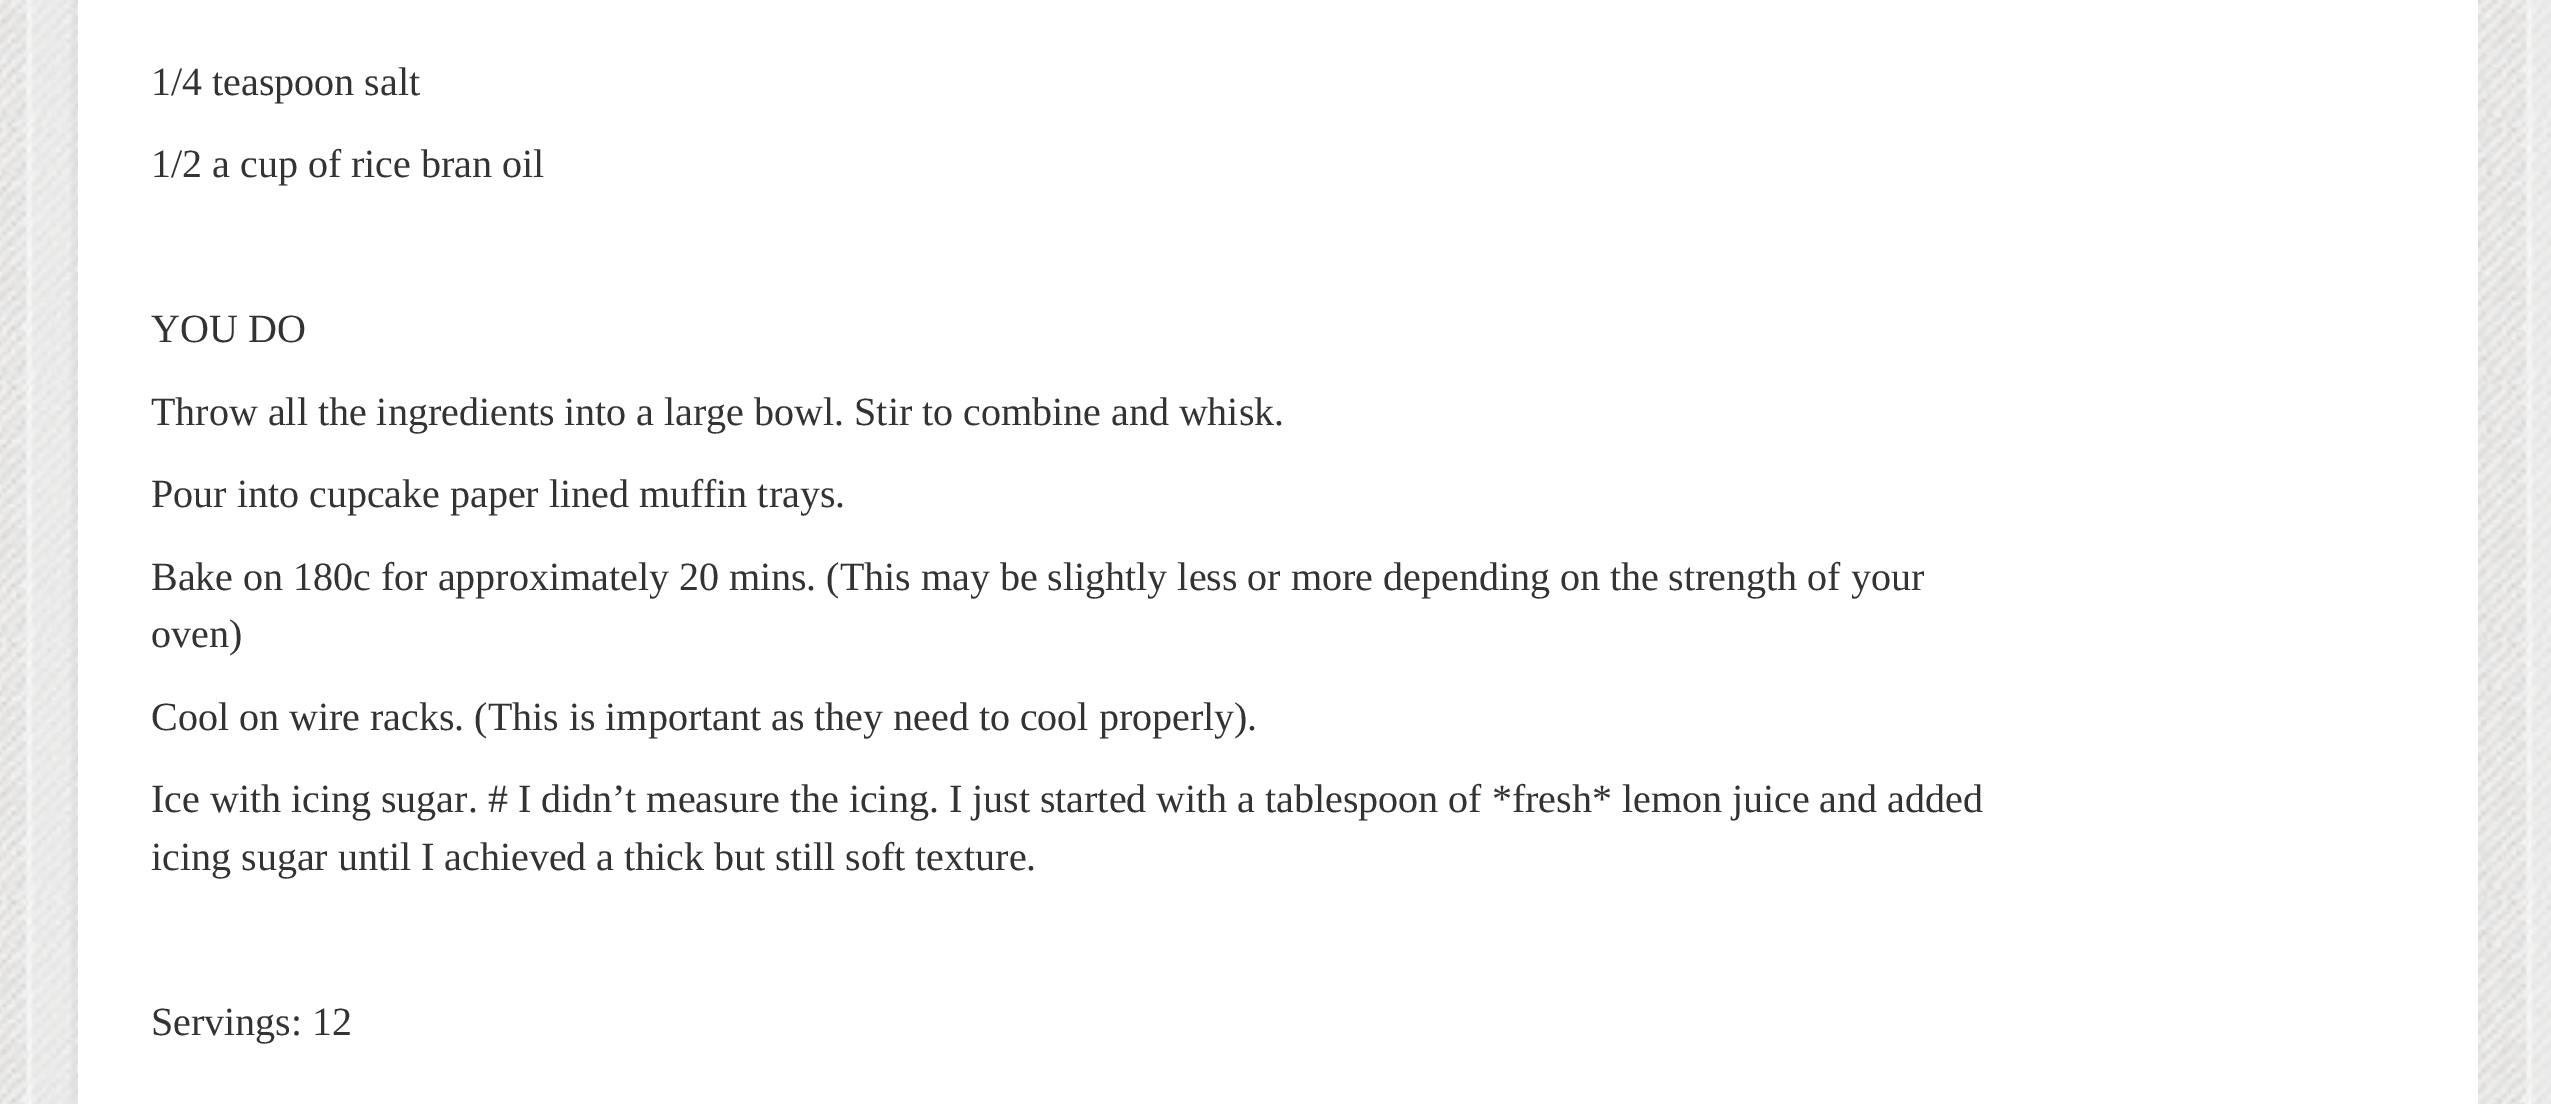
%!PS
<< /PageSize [2551 1104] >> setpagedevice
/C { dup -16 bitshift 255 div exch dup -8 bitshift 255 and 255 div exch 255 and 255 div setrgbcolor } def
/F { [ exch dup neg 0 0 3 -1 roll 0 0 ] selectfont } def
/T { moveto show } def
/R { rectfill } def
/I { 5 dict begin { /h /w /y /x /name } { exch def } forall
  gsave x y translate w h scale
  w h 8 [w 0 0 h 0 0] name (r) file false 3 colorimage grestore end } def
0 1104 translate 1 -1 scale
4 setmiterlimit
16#FFFFFF C
0 0 2551 1104 R
(1.rgb) 0 0 2551 1104 I
78 0 2400 1104 R
/LiberationSerif-Regular 40 F
16#333333 C
(1/4 teaspoon salt) 151 95 T
(1/2 a cup of rice bran oil) 151 177 T
(YOU DO) 151 342 T
(Throw all the ingredients into a large bowl. Stir to combine and whisk.) 151 425 T
(Pour into cupcake paper lined muffin trays.) 151 507 T
(Bake on 180c for approximately 20 mins. \(This may be slightly less or more depending on the strength of your) 151 590 T
(oven\)) 151 647 T
(Cool on wire racks. \(This is important as they need to cool properly\).) 151 730 T
(Ice with icing sugar. # I didn’t measure the icing. I just started with a tablespoon of *fresh* lemon juice and added) 151 812 T
(icing sugar until I achieved a thick but still soft texture.) 151 870 T
(Servings: 12) 151 1035 T
showpage
